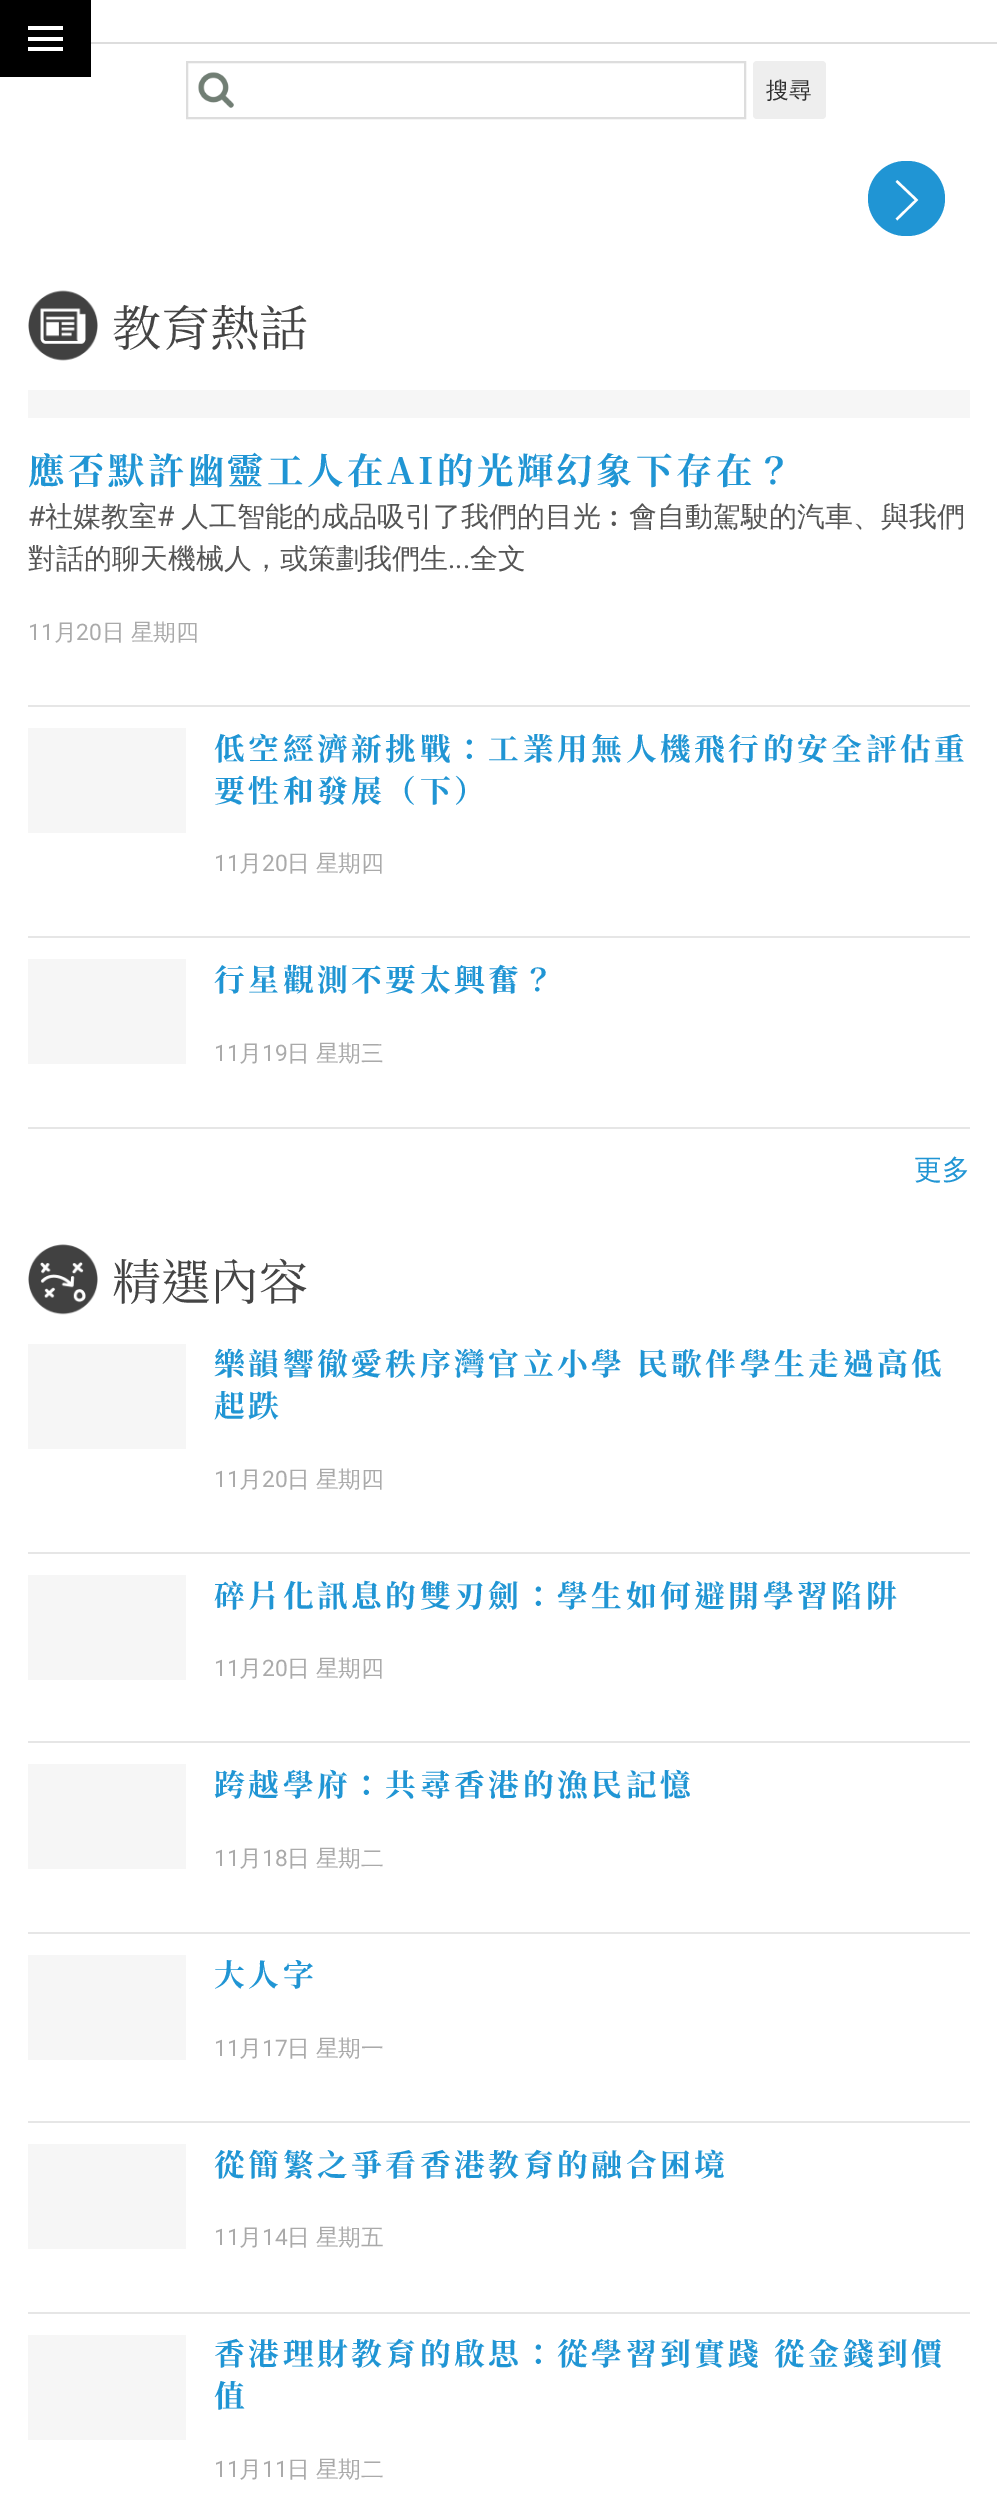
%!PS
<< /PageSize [997 2519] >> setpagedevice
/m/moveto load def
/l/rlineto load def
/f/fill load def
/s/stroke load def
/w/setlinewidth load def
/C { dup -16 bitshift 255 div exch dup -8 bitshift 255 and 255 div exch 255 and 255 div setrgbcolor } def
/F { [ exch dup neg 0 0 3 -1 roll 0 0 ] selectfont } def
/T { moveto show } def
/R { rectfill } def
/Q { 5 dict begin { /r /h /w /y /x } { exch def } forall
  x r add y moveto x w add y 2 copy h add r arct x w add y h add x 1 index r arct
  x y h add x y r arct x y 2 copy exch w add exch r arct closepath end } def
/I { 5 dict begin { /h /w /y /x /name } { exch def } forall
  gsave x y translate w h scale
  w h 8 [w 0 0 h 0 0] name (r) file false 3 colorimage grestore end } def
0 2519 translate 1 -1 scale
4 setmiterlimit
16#FFFFFF C
0 0 997 2519 R
16#000000 C
0 0 91 77 R
16#FFFFFF C
28 37 35 4 R
28 26 35 4 R
28 47 35 4 R
16#DDDDDD C
91 42 906 2 R
(1.rgb) 198 72 36 36 I
2 w
187 62 558 56 rectstroke
16#EEEEEE C
753 61 73 58 4 Q f
/WenQuanYiZenHei-Medium 22.75 F
16#303030 C
(搜尋) 766 98 T
16#2095D4 C
868 161 77 75 37.5 Q f
16#FFFFFF C
2.4 w
896.5 219.5 m 20 -19.5 l -20 -19 l s
(2.rgb) 28 290 70 71 I
/NotoSerifCJKTC-Regular 49 F
16#444444 C
(教育熱話) 112 346 T
16#E6E6E6 C
28 705 942 2 R
16#F6F6F6 C
28 390 942 28 R
/NotoSerifCJKTC-Bold 36.4 F
16#2095D4 C
28 484 m 3.5 0 (應否默許幽靈工人在AI的光輝幻象下存在？) ashow
/Roboto-Regular 28 F
16#555555 C
(#) 28 526 T
/WenQuanYiZenHei-Medium 28 F
(社媒教室) 45 526 T
/Roboto-Regular 28 F
(#) 157 526 T
/WenQuanYiZenHei-Medium 28 F
(人工智能的成品吸引了我們的目光︰會自動駕駛的汽車、與我們) 181 526 T
(對話的聊天機械人，或策劃我們生) 28 568 T
/Roboto-Regular 28 F
(...) 448 568 T
/WenQuanYiZenHei-Medium 28 F
(全文) 470 568 T
/Roboto-Regular 22.75 F
16#AAAAAA C
(11) 28 640 T
/WenQuanYiZenHei-Medium 22.75 F
(月) 54 640 T
/Roboto-Regular 22.75 F
(20) 76 640 T
/WenQuanYiZenHei-Medium 22.75 F
102 640 m -1 0 32 (日 星期四) widthshow
16#E6E6E6 C
28 936 942 2 R
16#F6F6F6 C
28 728 158 105 R
/NotoSerifCJKTC-Bold 30.8 F
16#2095D4 C
214 760 m 3.5 0 (低空經濟新挑戰：工業用無人機飛行的安全評估重) ashow
214 802 m 3.5 0 (要性和發展（下）) ashow
/Roboto-Regular 22.75 F
16#AAAAAA C
(11) 214 871 T
/WenQuanYiZenHei-Medium 22.75 F
(月) 239 871 T
/Roboto-Regular 22.75 F
(20) 262 871 T
/WenQuanYiZenHei-Medium 22.75 F
287 871 m -1 0 32 (日 星期四) widthshow
16#E6E6E6 C
28 1127 942 2 R
16#F6F6F6 C
28 959 158 105 R
/NotoSerifCJKTC-Bold 30.8 F
16#2095D4 C
214 991 m 3.5 0 (行星觀測不要太興奮？) ashow
/Roboto-Regular 22.75 F
16#AAAAAA C
(11) 214 1061 T
/WenQuanYiZenHei-Medium 22.75 F
(月) 239 1061 T
/Roboto-Regular 22.75 F
(19) 262 1061 T
/WenQuanYiZenHei-Medium 22.75 F
287 1061 m -1 0 32 (日 星期三) widthshow
/WenQuanYiZenHei-Medium 28 F
16#2095D4 C
(更多) 914 1179 T
(3.rgb) 28 1244 70 71 I
/NotoSerifCJKTC-Regular 49 F
16#444444 C
(精選內容) 112 1300 T
16#E6E6E6 C
28 1552 942 2 R
16#F6F6F6 C
28 1344 158 105 R
/NotoSerifCJKTC-Bold 30.8 F
16#2095D4 C
214 1375 m 3.5 0 (樂韻響徹愛秩序灣官立小學 民歌伴學生走過高低) ashow
214 1417 m 3.5 0 (起跌) ashow
/Roboto-Regular 22.75 F
16#AAAAAA C
(11) 214 1487 T
/WenQuanYiZenHei-Medium 22.75 F
(月) 239 1487 T
/Roboto-Regular 22.75 F
(20) 262 1487 T
/WenQuanYiZenHei-Medium 22.75 F
287 1487 m -1 0 32 (日 星期四) widthshow
16#E6E6E6 C
28 1741 942 2 R
16#F6F6F6 C
28 1575 158 105 R
/NotoSerifCJKTC-Bold 30.8 F
16#2095D4 C
214 1607 m 3.5 0 (碎片化訊息的雙刃劍：學生如何避開學習陷阱) ashow
/Roboto-Regular 22.75 F
16#AAAAAA C
(11) 214 1676 T
/WenQuanYiZenHei-Medium 22.75 F
(月) 239 1676 T
/Roboto-Regular 22.75 F
(20) 262 1676 T
/WenQuanYiZenHei-Medium 22.75 F
287 1676 m -1 0 32 (日 星期四) widthshow
16#E6E6E6 C
28 1932 942 2 R
16#F6F6F6 C
28 1764 158 105 R
/NotoSerifCJKTC-Bold 30.8 F
16#2095D4 C
214 1796 m 3.5 0 (跨越學府：共尋香港的漁民記憶) ashow
/Roboto-Regular 22.75 F
16#AAAAAA C
(11) 214 1866 T
/WenQuanYiZenHei-Medium 22.75 F
(月) 239 1866 T
/Roboto-Regular 22.75 F
(18) 262 1866 T
/WenQuanYiZenHei-Medium 22.75 F
287 1866 m -1 0 32 (日 星期二) widthshow
16#E6E6E6 C
28 2121 942 2 R
16#F6F6F6 C
28 1955 158 105 R
/NotoSerifCJKTC-Bold 30.8 F
16#2095D4 C
214 1986 m 3.5 0 (大人字) ashow
/Roboto-Regular 22.75 F
16#AAAAAA C
(11) 214 2056 T
/WenQuanYiZenHei-Medium 22.75 F
(月) 239 2056 T
/Roboto-Regular 22.75 F
(17) 262 2056 T
/WenQuanYiZenHei-Medium 22.75 F
287 2056 m -1 0 32 (日 星期一) widthshow
16#E6E6E6 C
28 2312 942 2 R
16#F6F6F6 C
28 2144 158 105 R
/NotoSerifCJKTC-Bold 30.8 F
16#2095D4 C
214 2176 m 3.5 0 (從簡繁之爭看香港教育的融合困境) ashow
/Roboto-Regular 22.75 F
16#AAAAAA C
(11) 214 2245 T
/WenQuanYiZenHei-Medium 22.75 F
(月) 239 2245 T
/Roboto-Regular 22.75 F
(14) 262 2245 T
/WenQuanYiZenHei-Medium 22.75 F
287 2245 m -1 0 32 (日 星期五) widthshow
16#F6F6F6 C
28 2335 158 105 R
/NotoSerifCJKTC-Bold 30.8 F
16#2095D4 C
214 2365 m 3.5 0 (香港理財教育的啟思：從學習到實踐 從金錢到價) ashow
214 2407 m 3.5 0 (值) ashow
/Roboto-Regular 22.75 F
16#AAAAAA C
(11) 214 2477 T
/WenQuanYiZenHei-Medium 22.75 F
(月) 239 2477 T
/Roboto-Regular 22.75 F
(11) 262 2477 T
/WenQuanYiZenHei-Medium 22.75 F
287 2477 m -1 0 32 (日 星期二) widthshow
showpage
